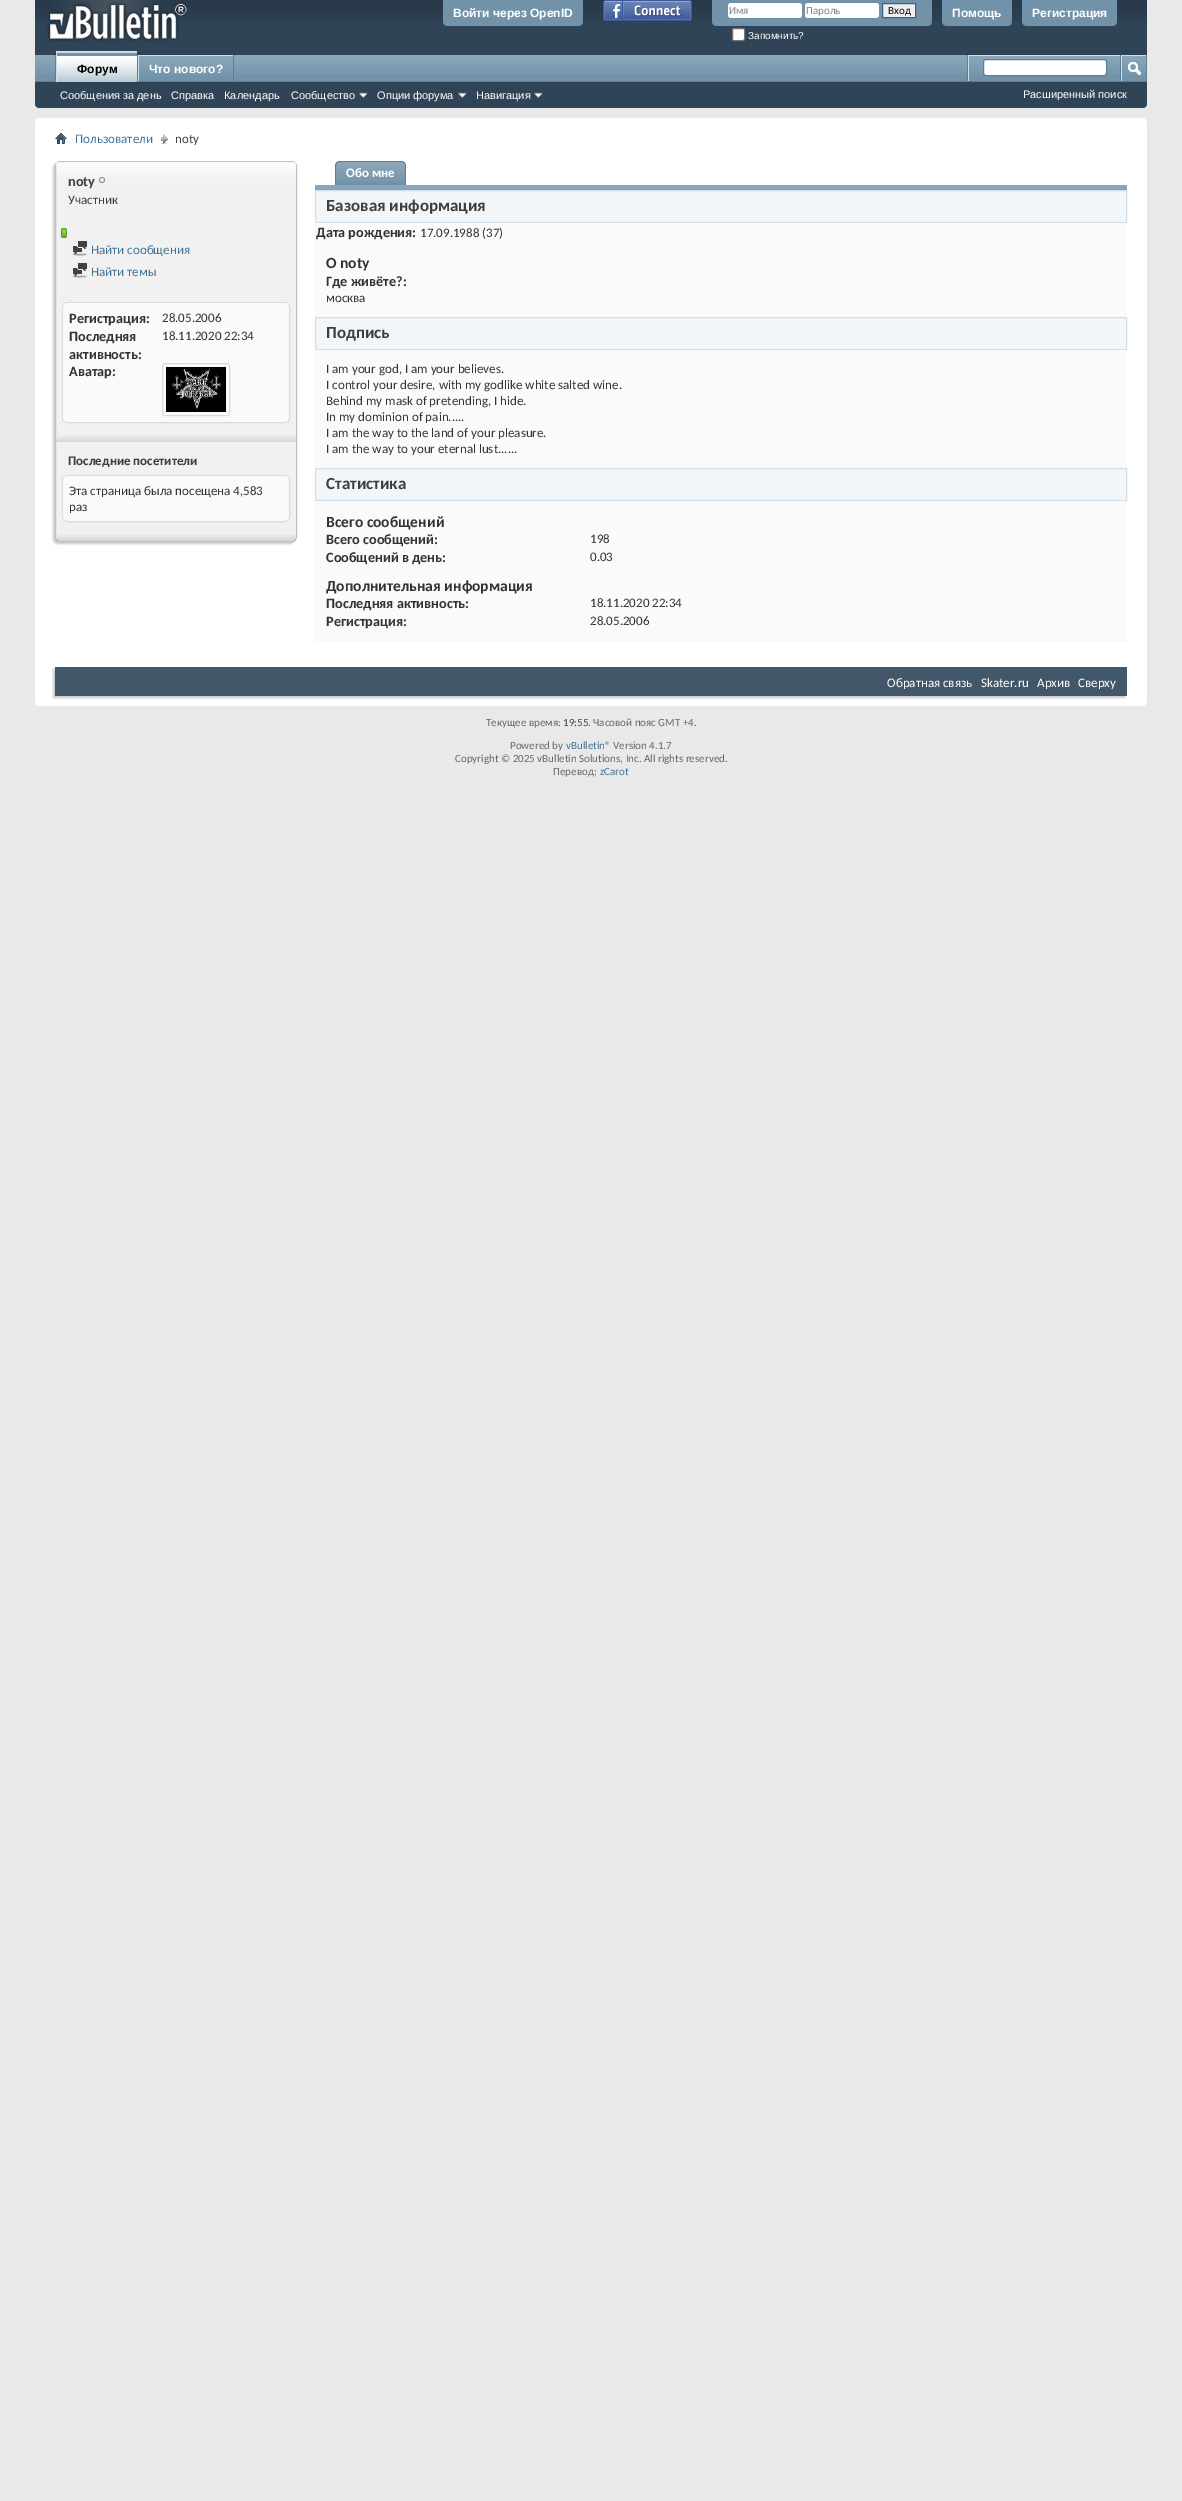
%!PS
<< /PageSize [1182 2501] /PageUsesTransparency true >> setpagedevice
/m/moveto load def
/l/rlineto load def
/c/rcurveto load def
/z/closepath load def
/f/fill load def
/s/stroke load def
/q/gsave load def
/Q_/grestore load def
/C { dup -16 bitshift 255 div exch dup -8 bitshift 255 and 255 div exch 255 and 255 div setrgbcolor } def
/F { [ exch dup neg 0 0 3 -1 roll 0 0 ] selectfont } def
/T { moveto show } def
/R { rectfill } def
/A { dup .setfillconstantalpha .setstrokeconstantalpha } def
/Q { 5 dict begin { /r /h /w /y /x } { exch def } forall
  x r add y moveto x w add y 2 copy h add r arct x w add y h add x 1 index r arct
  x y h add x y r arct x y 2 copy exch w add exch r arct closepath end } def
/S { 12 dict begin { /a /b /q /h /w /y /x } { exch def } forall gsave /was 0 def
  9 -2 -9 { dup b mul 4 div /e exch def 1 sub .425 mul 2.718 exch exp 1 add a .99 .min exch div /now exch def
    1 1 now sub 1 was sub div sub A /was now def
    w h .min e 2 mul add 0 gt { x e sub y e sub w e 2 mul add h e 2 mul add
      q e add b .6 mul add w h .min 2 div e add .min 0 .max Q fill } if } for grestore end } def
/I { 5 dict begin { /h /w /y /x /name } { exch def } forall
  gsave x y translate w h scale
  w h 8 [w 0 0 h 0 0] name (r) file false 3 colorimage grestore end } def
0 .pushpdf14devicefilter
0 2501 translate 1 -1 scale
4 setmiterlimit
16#E9E9E9 C
0 0 1182 2501 R
16#2F4456 C
35 0 m 1112 0 l 0 103 l 0 3 -2 5 -5 5 c -1102 0 l -3 0 -5 -2 -5 -5 c z f
(1.rgb) 35 0 1112 22 I
(2.rgb) 47 0 140 42 I
16#7192A8 C
443 0 m 140 0 l 0 21 l 0 3 -2 5 -5 5 c -130 0 l -3 0 -5 -2 -5 -5 c z f
/LiberationSans-Bold 12 F
16#FFFFFF C
(Войти через OpenID) 453 17 T
(3.rgb) 603 0 89 21 I
16#7192A8 C
712 0 m 220 0 l 0 21 l 0 3 -2 5 -5 5 c -210 0 l -3 0 -5 -2 -5 -5 c z f
16#FFFFFF C
728 3 74 15 3 Q f
/Carlito-Regular 11 F
16#828282 C
(Имя) 729 14 T
16#FFFFFF C
805 3 74 15 3 Q f
16#828282 C
(Пароль) 806 14 T
16#EFEFEF C
882.5 3.5 m 33 0 l 0 14 l -33 0 l z q f Q_
16#415D8D C
s
16#000000 C
(Вход) 888 14 T
16#FFFFFF C
732.5 28.5 12 12 1.5 Q q f Q_
16#767676 C
s
/LiberationSans-Regular 10 F
16#FFFFFF C
(Запомнить?) 748 39 T
16#7192A8 C
942 0 m 70 0 l 0 21 l 0 3 -2 5 -5 5 c -60 0 l -3 0 -5 -2 -5 -5 c z f
/LiberationSans-Bold 12 F
16#FFFFFF C
(Помощь) 952 17 T
16#7192A8 C
1022 0 m 95 0 l 0 21 l 0 3 -2 5 -5 5 c -85 0 l -3 0 -5 -2 -5 -5 c z f
16#FFFFFF C
(Регистрация) 1032 17 T
16#2F4456 C
35 55 m 1112 0 l 0 48 l 0 3 -2 5 -5 5 c -1102 0 l -3 0 -5 -2 -5 -5 c z f
16#7192A8 C
35 55 1111 26 R
(4.rgb) 35 55 1111 20 I
16#5A7F97 C
137 55 1 26 R
55 55 1 26 R
233 55 1 27 R
16#CEDFEB C
138 55 95 1 R
138 55 1 27 R
16#5A7F97 C
35 81 1112 1 R
16#7192A8 C
57 52 80 30 R
(5.rgb) 57 52 80 30 I
16#CEDFEB C
56 51 81 1 R
56 51 1 31 R
16#000000 C
(Форум) 77 73 T
/LiberationSans-Regular 11 F
16#FFFFFF C
(Сообщения за день) 60 99 T
(Справка) 171 99 T
(Календарь) 224 99 T
(Сообщество) 291 99 T
(6.rgb) 359 92 9 6 I
(Опции форума) 377 99 T
(6.rgb) 458 92 9 6 I
(Навигация) 476 99 T
(6.rgb) 534 92 9 6 I
16#7192A8 C
139 56 94 19 R
(7.rgb) 139 56 94 20 I
/LiberationSans-Bold 12 F
16#FFFFFF C
(Что нового?) 149 73 T
16#5A7F97 C
967 55 1 26 R
16#CEDFEB C
968 55 152 1 R
968 55 1 26 R
16#FFFFFF C
983.5 59.5 123 16 2.5 Q q f Q_
16#5A7F97 C
s
1146 55 1 26 R
1120 55 1 26 R
16#CEDFEB C
1121 55 25 1 R
1121 55 1 26 R
(8.rgb) 1128 62 13 14 I
/LiberationSans-Regular 11 F
16#FFFFFF C
(Расширенный поиск) 1023 98 T
35 118 1112 588 5 Q f
(9.rgb) 55 133 12 11 I
(10.rgb) 161 134 7 10 I
/Carlito-Regular 13 F
16#417394 C
(Пользователи) 75 143 T
16#3E3E3E C
(noty) 175 143 T
16#C8C8C8 C
53 163 242 381 5 1 1 S
16#F1F1F1 C
55 161 242 381 5 Q f
(11.rgb) 55 162 242 15 I
16#C1C1C1 C
55.5 161.5 241 380 4.5 Q s
0.58 A
16#FFFFFF C
56 162 240 4 R
/Carlito-Bold 14.25 F
1 A
16#3E3E3E C
(noty) 68 186 T
(12.rgb) 99 177 6 6 I
/Carlito-Regular 13 F
(Участник) 68 204 T
(13.rgb) 60 228 7 10 I
(14.rgb) 72 241 15 15 I
16#417394 C
(Найти сообщения) 91 254 T
(14.rgb) 72 263 15 15 I
(Найти темы) 91 276 T
16#DADADA C
62.5 302.5 227 120 4.5 Q s
16#FAFAFA C
63 303 226 119 5 Q f
286 303 1 1 R
/Carlito-Bold 14.25 F
16#333333 C
(Регистрация:) 69 323 T
/Carlito-Regular 13 F
(28.05.2006) 162 322 T
/Carlito-Bold 14.25 F
(Последняя) 69 341 T
(активность:) 69 359 T
/Carlito-Regular 13 F
(18.11.2020 22:34) 162 340 T
/Carlito-Bold 14.25 F
(Аватар:) 69 376 T
16#DADADA C
162.5 363.5 67 52 2.5 Q s
(15.rgb) 166 367 60 45 I
(16.rgb) 56 435 240 7 I
/Carlito-Bold 13 F
16#3E3E3E C
(Последние посетители) 68 465 T
16#DADADA C
62.5 475.5 227 46 4.5 Q s
16#FAFAFA C
63 476 226 45 5 Q f
286 476 1 1 R
/Carlito-Regular 13 F
16#333333 C
(Эта страница была посещена 4,583) 69 495 T
(раз) 69 511 T
(17.rgb) 56 534 240 7 I
16#7192A8 C
340 162 m 61 0 l 2 0 4 2 4 4 c 0 19 l -69 0 l 0 -19 l 0 -2 2 -4 4 -4 c z f
(18.rgb) 336 162 69 20 I
16#5A7F97 C
340 161 m 61 0 l 3 0 5 2 5 5 c 0 19 l -71 0 l 0 -19 l 0 -3 2 -5 5 -5 c z 340 162 m 61 0 l 2 0 4 2 4 4 c 0 19 l -69 0 l 0 -19 l 0 -2 2 -4 4 -4 c z eofill
/Carlito-Bold 13 F
16#FFFFFF C
(Обо мне) 346 177 T
16#7192A8 C
315 185 812 5 R
(19.rgb) 315 185 812 5 I
16#F2F6F8 C
315.5 190.5 m 811 0 l 0 32 l -811 0 l z q f Q_
16#CEDFEB C
s
/Carlito-Bold 17 F
16#3E3E3E C
(Базовая информация) 326 211 T
16#FAFAFA C
315 223 812 94 R
/Carlito-Bold 14.25 F
16#333333 C
(Дата рождения:) 316 237 T
/Carlito-Regular 13 F
(17.09.1988 \(37\)) 420 237 T
/Carlito-Bold 15.6 F
(О noty) 326 268 T
/Carlito-Bold 14.25 F
(Где живёте?:) 326 286 T
/Carlito-Regular 13 F
(москва) 326 302 T
16#F2F6F8 C
315.5 317.5 m 811 0 l 0 32 l -811 0 l z q f Q_
16#CEDFEB C
s
/Carlito-Bold 17 F
16#3E3E3E C
(Подпись) 326 338 T
16#FAFAFA C
315 350 812 118 R
/Carlito-Regular 13 F
16#333333 C
(I am your god, I am your believes.) 326 373 T
(I control your desire, with my godlike white salted wine.) 326 389 T
(Behind my mask of pretending, I hide.) 326 405 T
(In my dominion of pain.....) 326 421 T
(I am the way to the land of your pleasure.) 326 437 T
(I am the way to your eternal lust......) 326 453 T
16#F2F6F8 C
315.5 468.5 m 811 0 l 0 32 l -811 0 l z q f Q_
16#CEDFEB C
s
/Carlito-Bold 17 F
16#3E3E3E C
(Статистика) 326 489 T
16#FAFAFA C
315 501 812 141 R
/Carlito-Bold 15.6 F
16#333333 C
(Всего сообщений) 326 527 T
/Carlito-Bold 14.25 F
(Всего сообщений:) 326 544 T
/Carlito-Regular 13 F
(198) 590 543 T
/Carlito-Bold 14.25 F
(Сообщений в день:) 326 562 T
/Carlito-Regular 13 F
(0.03) 590 561 T
/Carlito-Bold 15.6 F
(Дополнительная информация) 326 591 T
/Carlito-Bold 14.25 F
(Последняя активность:) 326 608 T
/Carlito-Regular 13 F
(18.11.2020 22:34) 590 607 T
/Carlito-Bold 14.25 F
(Регистрация:) 326 626 T
/Carlito-Regular 13 F
(28.05.2006) 590 625 T
16#C8C8C8 C
53 669 1072 29 0 1 1 S
16#425769 C
55 667 1072 29 R
16#FFFFFF C
(Обратная связь) 887 687 T
(Skater.ru) 981 687 T
(Архив) 1037 687 T
(Сверху) 1078 687 T
/Carlito-Regular 11 F
16#666666 C
(Текущее время:) 486 726 T
16#3E3E3E C
(19:55) 563 726 T
16#666666 C
(. Часовой пояс GMT +4.) 588 726 T
(Powered by) 510 749 T
16#417394 C
(vBulletin®) 566 749 T
16#666666 C
(Version 4.1.7) 613 749 T
(Copyright © 2025 vBulletin Solutions, Inc. All rights reserved.) 455 762 T
(Перевод:) 553 775 T
16#417394 C
(zCarot) 600 775 T
.poppdf14devicefilter showpage
